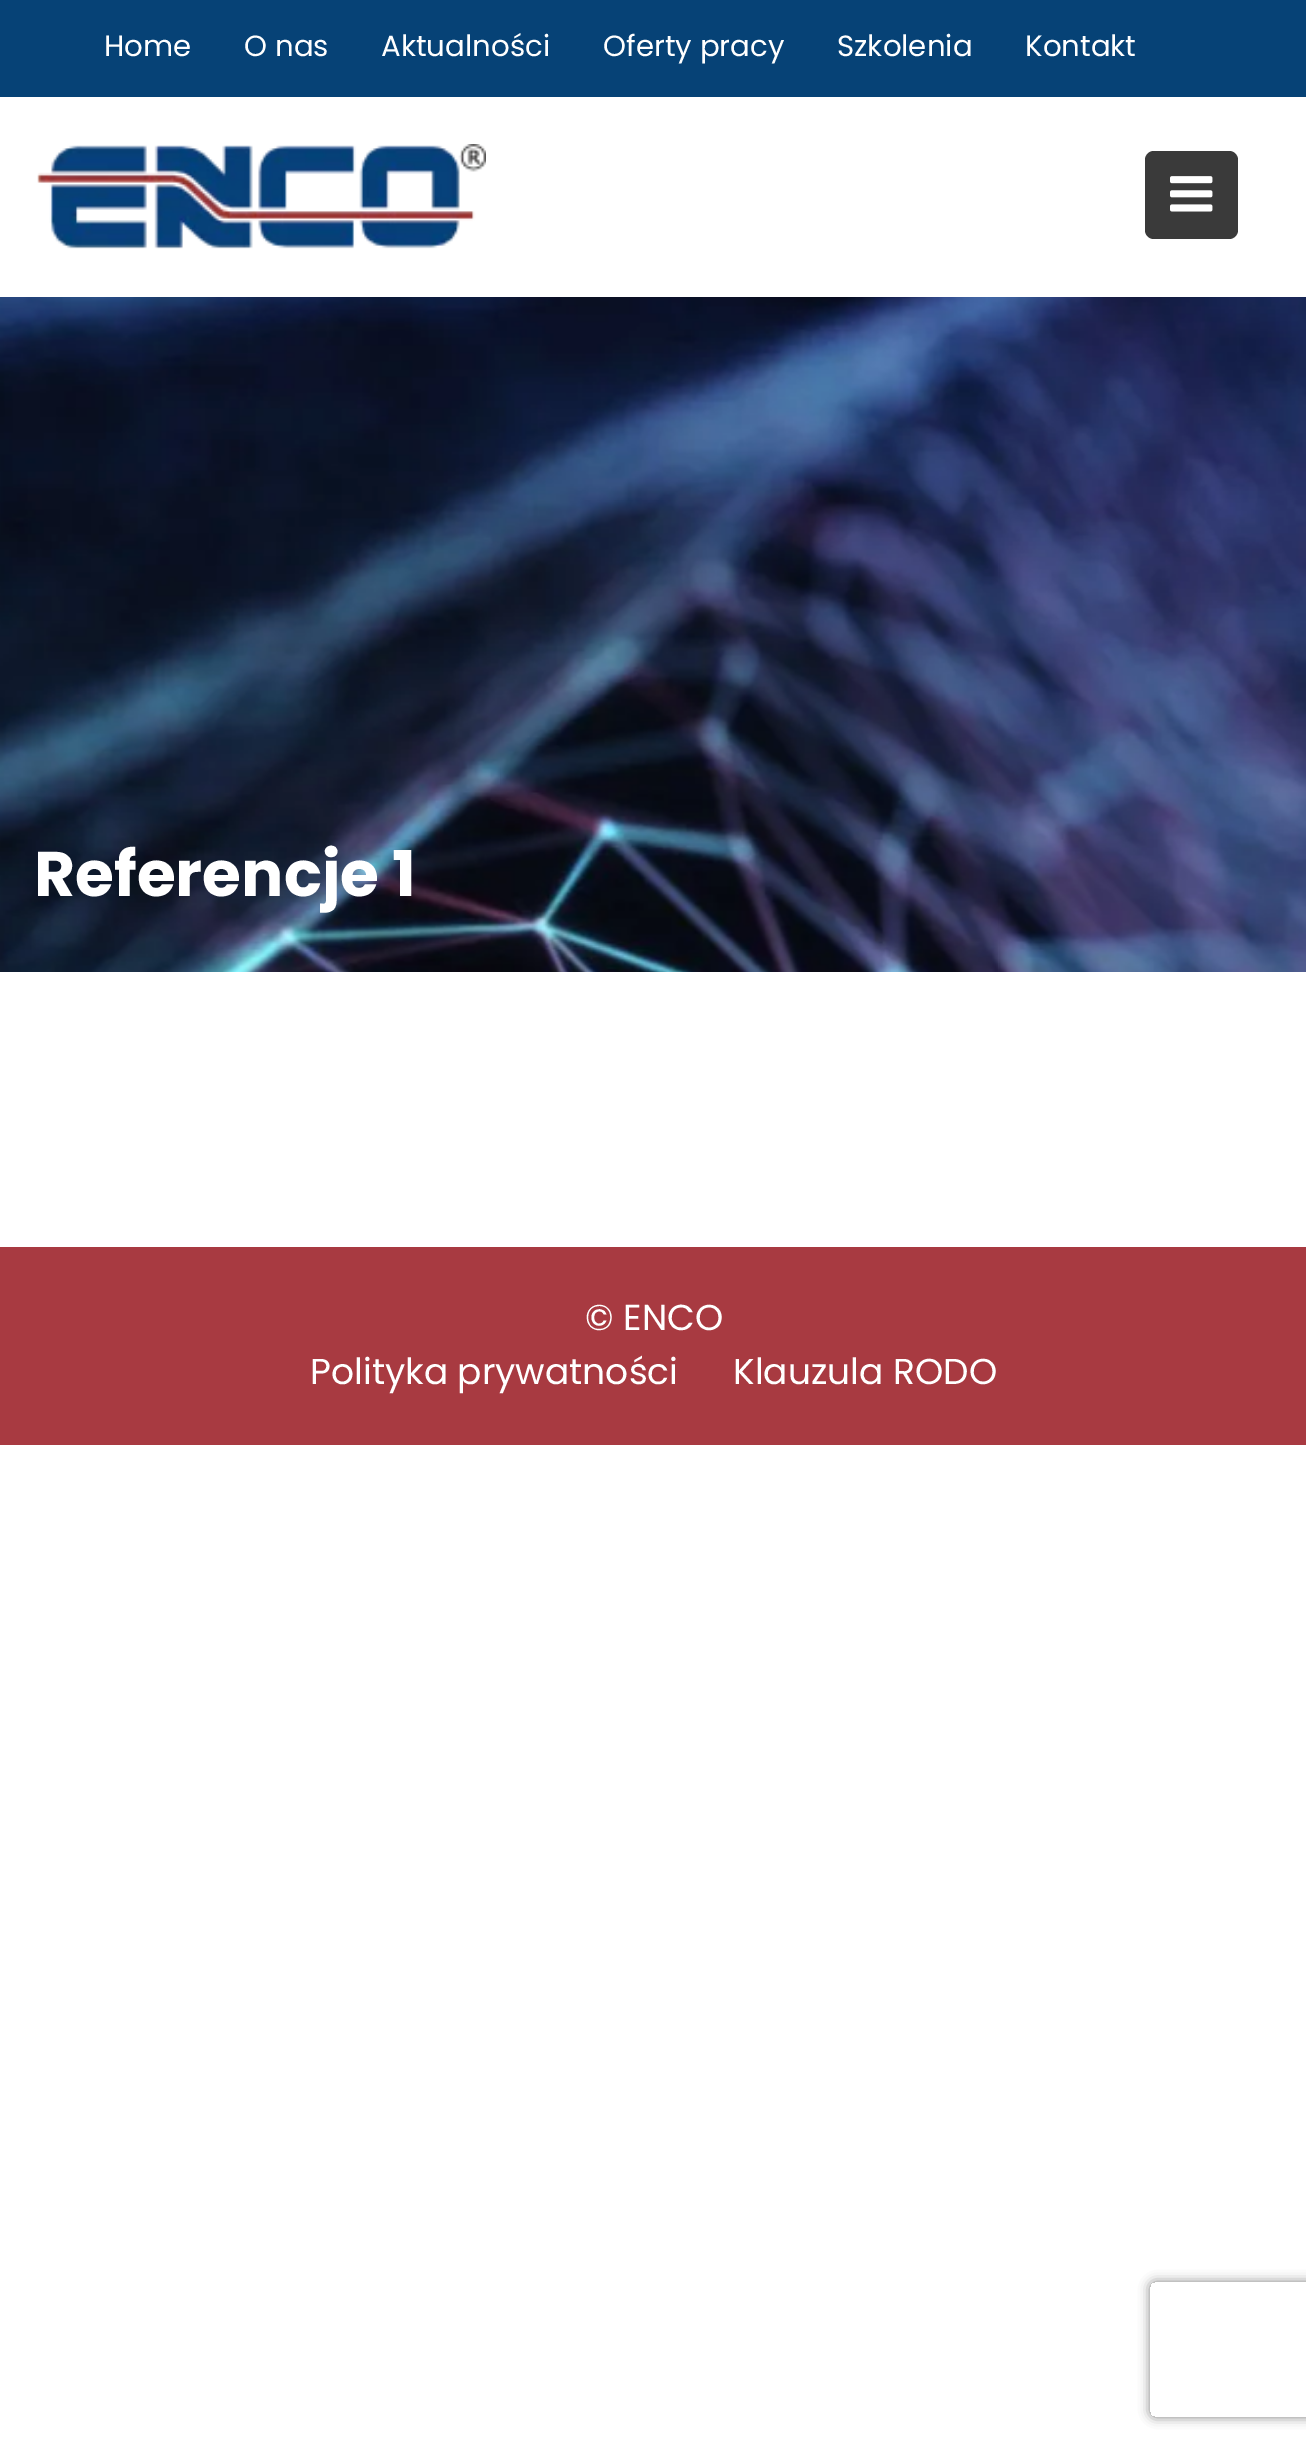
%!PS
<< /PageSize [1306 2447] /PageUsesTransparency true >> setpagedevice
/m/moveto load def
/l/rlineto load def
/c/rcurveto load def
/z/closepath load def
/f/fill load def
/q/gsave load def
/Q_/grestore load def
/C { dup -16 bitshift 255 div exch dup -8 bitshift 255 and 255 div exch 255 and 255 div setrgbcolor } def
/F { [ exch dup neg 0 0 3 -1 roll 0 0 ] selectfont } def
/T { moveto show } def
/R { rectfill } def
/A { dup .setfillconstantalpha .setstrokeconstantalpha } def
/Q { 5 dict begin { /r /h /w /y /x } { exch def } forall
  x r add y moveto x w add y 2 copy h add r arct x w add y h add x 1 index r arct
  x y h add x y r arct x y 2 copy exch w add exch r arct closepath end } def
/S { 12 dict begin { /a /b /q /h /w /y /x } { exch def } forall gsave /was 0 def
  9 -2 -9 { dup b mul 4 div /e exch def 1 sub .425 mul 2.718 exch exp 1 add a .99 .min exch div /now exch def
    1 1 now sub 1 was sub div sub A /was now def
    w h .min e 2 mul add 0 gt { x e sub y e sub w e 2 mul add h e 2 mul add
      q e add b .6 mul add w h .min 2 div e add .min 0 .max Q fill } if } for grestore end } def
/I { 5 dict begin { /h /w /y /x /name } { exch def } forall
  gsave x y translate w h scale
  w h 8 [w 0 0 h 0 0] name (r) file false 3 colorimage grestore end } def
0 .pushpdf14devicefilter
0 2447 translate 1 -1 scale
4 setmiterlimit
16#FFFFFF C
0 0 1306 2447 R
16#064276 C
0 0 1306 97 R
/Poppins-Regular 29.25 F
16#FFFFFF C
(Home) 104 56 T
(O nas) 244 56 T
(Aktualności) 381 56 T
(Oferty pracy) 603 56 T
(Szkolenia) 837 56 T
(Kontakt) 1025 56 T
(1.rgb) 37 144 449 105 I
16#3A3A3A C
1145 151 93 88 9 Q f
(2.rgb) 1170 176 43 36 I
(3.rgb) 0 297 1306 675 I
/Poppins-Bold 63 F
16#FFFFFF C
(Referencje 1) 34 896 T
16#A83A41 C
0 1247 1306 198 R
/Poppins-Regular 36 F
16#FFFFFF C
(© ENCO) 585 1330 T
(Polityka prywatności) 310 1384 T
(Klauzula RODO) 733 1384 T
q
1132 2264 m 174 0 l 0 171 l -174 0 l z 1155 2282 m 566 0 l 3 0 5 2 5 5 c 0 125 l 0 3 -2 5 -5 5 c -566 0 l -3 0 -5 -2 -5 -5 c 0 -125 l 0 -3 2 -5 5 -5 c z eoclip newpath
16#808080 C
1150 2282 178 135 5 5.5 1 S
Q_
.poppdf14devicefilter showpage
